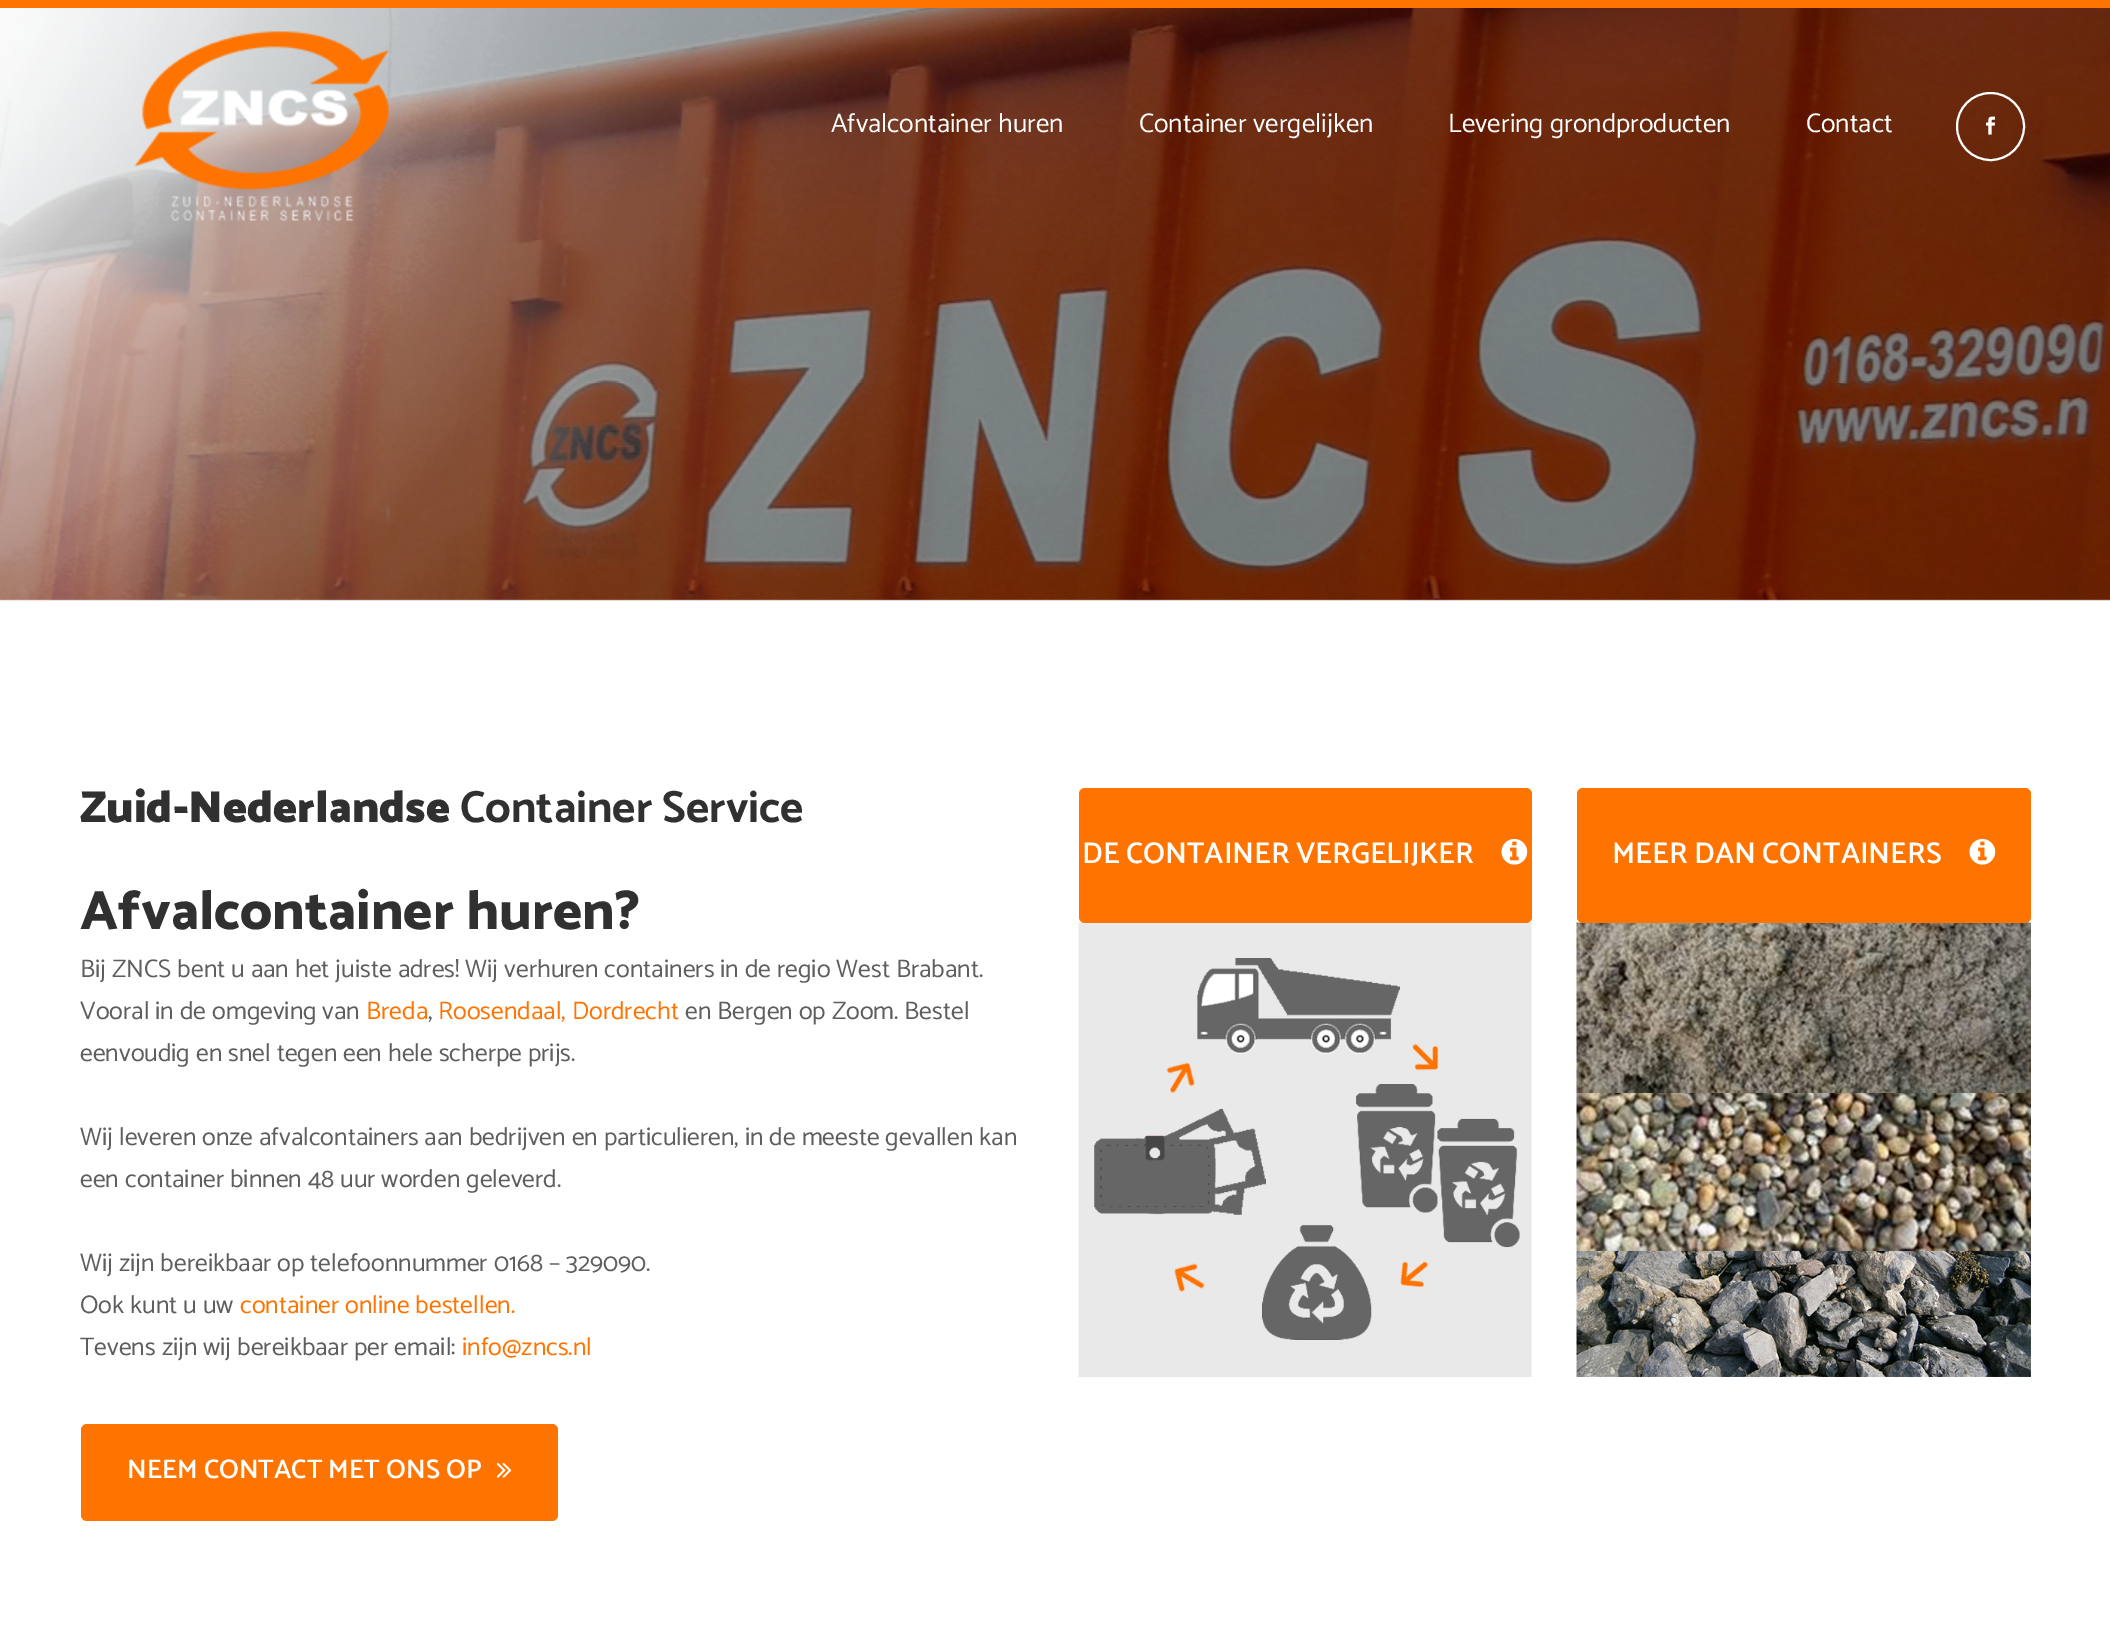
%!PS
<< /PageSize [2110 1650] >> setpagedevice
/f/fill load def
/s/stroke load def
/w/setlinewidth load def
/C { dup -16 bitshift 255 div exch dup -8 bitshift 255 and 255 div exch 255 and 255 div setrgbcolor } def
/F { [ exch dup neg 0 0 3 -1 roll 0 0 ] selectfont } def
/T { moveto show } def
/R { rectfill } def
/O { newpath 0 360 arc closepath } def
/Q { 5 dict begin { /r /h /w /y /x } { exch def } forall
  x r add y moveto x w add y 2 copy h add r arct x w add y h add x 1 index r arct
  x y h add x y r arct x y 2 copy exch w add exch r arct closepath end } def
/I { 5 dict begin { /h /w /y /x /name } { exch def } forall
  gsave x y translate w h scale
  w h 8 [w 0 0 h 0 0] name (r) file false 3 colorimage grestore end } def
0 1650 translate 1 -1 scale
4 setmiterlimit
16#FFFFFF C
0 0 2110 1650 R
16#FF7300 C
0 0 2110 8 R
(3.rgb) 0 8 2110 593 I
(1.rgb) 134 31 255 190 I
/Catamaran-Regular 27 F
16#FFFFFF C
(Afvalcontainer huren) 831 132 T
(Container vergelijken) 1139 132 T
(Levering grondproducten) 1448 132 T
(Contact) 1806 132 T
2 w
1990.5 126.5 33.5 O s
(2.rgb) 1986 116 9 19 I
/Catamaran-Black 45 F
16#303030 C
(Zuid-Nederlandse) 80 822 T
/Catamaran-Bold 45 F
(Container Service) 460 822 T
/Catamaran-ExtraBold 55.5 F
(Afvalcontainer huren?) 80 929 T
/Catamaran-Regular 25.5 F
16#5E5E5E C
(Bij ZNCS bent u aan het juiste adres! Wij verhuren containers in de regio West Brabant.) 80 977 T
(Vooral in de omgeving van) 80 1019 T
16#FF7300 C
(Breda) 366 1019 T
16#5E5E5E C
(,) 428 1019 T
16#FF7300 C
(Roosendaal, Dordrecht) 438 1019 T
16#5E5E5E C
(en Bergen op Zoom. Bestel) 685 1019 T
(eenvoudig en snel tegen een hele scherpe prijs.) 80 1061 T
(Wij leveren onze afvalcontainers aan bedrijven en particulieren, in de meeste gevallen kan) 80 1145 T
(een container binnen 48 uur worden geleverd.) 80 1187 T
(Wij zijn bereikbaar op telefoonnummer 0168 – 329090.) 80 1271 T
(Ook kunt u uw) 80 1313 T
16#FF7300 C
(container online bestellen.) 240 1313 T
16#5E5E5E C
(Tevens zijn wij bereikbaar per email:) 80 1355 T
16#FF7300 C
(info@zncs.nl) 462 1355 T
81 1424 477 97 6 Q f
/Catamaran-SemiBold 27 F
16#FFFFFF C
(NEEM CONTACT MET ONS OP) 127 1478 T
(4.rgb) 496 1462 16 16 I
(6.rgb) 1078 922 454 455 I
16#FF7300 C
1079 788 453 135 6 Q f
/Catamaran-SemiBold 30 F
16#FFFFFF C
(DE CONTAINER VERGELIJKER) 1082 863 T
(5.rgb) 1501 838 27 27 I
(7.rgb) 1576 922 455 455 I
16#FF7300 C
1577 788 454 135 6 Q f
16#FFFFFF C
(MEER DAN CONTAINERS) 1612 863 T
(5.rgb) 1969 838 27 27 I
showpage
